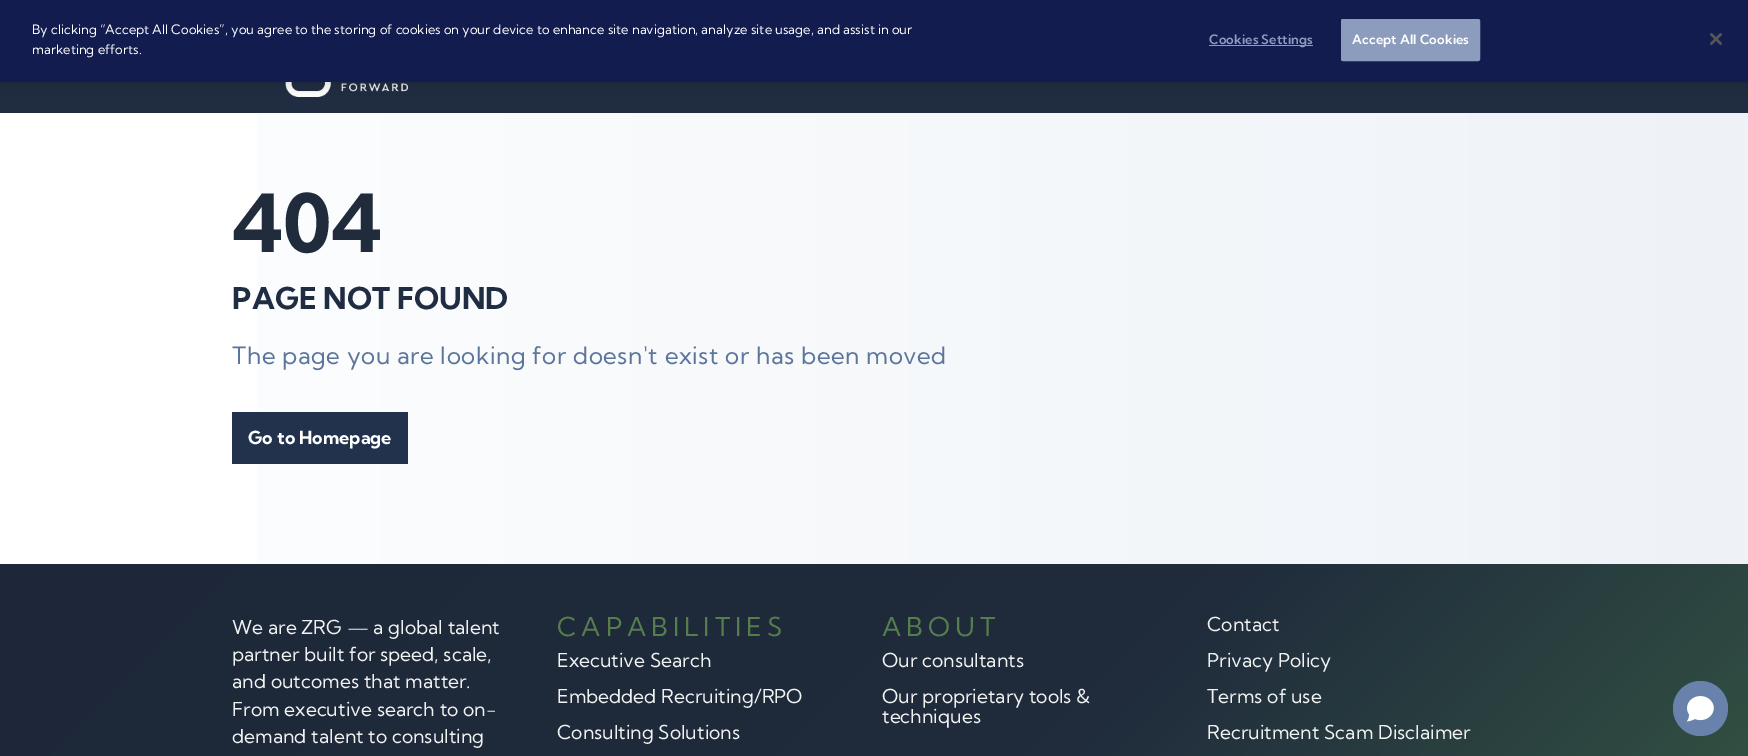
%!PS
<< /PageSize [1748 756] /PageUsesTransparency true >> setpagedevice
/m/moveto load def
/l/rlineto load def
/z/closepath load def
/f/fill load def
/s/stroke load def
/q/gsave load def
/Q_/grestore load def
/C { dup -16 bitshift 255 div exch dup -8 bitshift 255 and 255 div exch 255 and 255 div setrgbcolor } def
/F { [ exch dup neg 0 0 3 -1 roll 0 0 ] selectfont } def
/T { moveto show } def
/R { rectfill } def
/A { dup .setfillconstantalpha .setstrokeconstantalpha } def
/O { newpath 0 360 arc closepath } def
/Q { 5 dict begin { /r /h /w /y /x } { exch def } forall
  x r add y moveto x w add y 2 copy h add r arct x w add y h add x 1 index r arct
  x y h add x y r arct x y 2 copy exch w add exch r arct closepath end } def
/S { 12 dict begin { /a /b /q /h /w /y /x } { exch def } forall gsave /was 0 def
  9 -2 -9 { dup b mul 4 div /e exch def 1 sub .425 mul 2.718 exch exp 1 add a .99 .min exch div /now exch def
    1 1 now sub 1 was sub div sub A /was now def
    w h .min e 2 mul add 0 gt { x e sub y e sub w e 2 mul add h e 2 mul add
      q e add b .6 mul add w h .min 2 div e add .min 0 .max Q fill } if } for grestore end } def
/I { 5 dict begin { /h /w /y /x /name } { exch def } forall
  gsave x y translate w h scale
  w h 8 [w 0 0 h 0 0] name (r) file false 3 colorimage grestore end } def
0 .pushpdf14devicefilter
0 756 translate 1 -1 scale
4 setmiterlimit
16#FFFFFF C
0 0 1748 756 R
q 257 113 m 1491 0 l 0 451 l -1491 0 l z clip newpath
<< /ShadingType 2 /ColorSpace /DeviceRGB /Coords [0 378 1748 378] /Extend [true true] /Function << /FunctionType 2 /Domain [0 1] /C0 [1 1 1] /C1 [.933 .949 .969] /N 1 >> >> shfill Q_
16#1F2C42 C
0 82 1748 31 R
(2.rgb) 285 82 123 15 I
16#000000 C
0 0 1748 82 0 9 .2 S
16#121C4F C
0 0 1748 82 R
/KumbhSans-Regular 13 F
16#FFFFFF C
(By clicking “Accept All Cookies”, you agree to the storing of cookies on your device to enhance site navigation, analyze site usage, and assist in our) 32 34 T
(marketing efforts.) 32 54 T
16#8C9CBD C
1209 45 104 1 R
/KumbhSans-SemiBold 13 F
1209 44 m .1 0 (Cookies Settings) ashow
1341.5 19.5 138 41 1.5 Q q f Q_
s
16#FFFFFF C
1352 44 m .1 0 (Accept All Cookies) ashow
(1.rgb) 1710 33 12 12 I
/KumbhSans-Bold 80 F
16#202C3C C
(404) 232 252 T
/KumbhSans-Bold 30 F
16#1F2C42 C
(PAGE NOT FOUND) 232 309 T
/KumbhSans-Regular 24 F
16#5C759B C
232 364 m .5 0 (The page you are looking for doesn't exist or has been moved) ashow
16#22324D C
232 412 176 52 R
/KumbhSans-Bold 18 F
16#FFFFFF C
(Go to Homepage) 248 444 T
q 0 564 m 1748 0 l 0 192 l -1748 0 l z clip newpath
<< /ShadingType 2 /ColorSpace /DeviceRGB /Coords [311 253 1437 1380] /Extend [true true] /Function << /FunctionType 3 /Domain [0 1] /Functions [<< /FunctionType 2 /Domain [0 1] /C0 [.114 .153 .224] /C1 [.125 .173 .235] /N 1 >> << /FunctionType 2 /Domain [0 1] /C0 [.125 .173 .235] /C1 [.224 .373 .271] /N 1 >>] /Bounds [.56] /Encode [0 1 0 1] >> >> shfill Q_
/KumbhSans-Regular 19.25 F
16#F1F2F2 C
(We are ZRG — a global talent) 232 634 T
(partner built for speed, scale,) 232 661 T
(and outcomes that matter.) 232 688 T
(From executive search to on-) 232 716 T
(demand talent to consulting) 232 743 T
/KumbhSans-Regular 26 F
16#567E4D C
557 636 m 5 0 (CAPABILITIES) ashow
/KumbhSans-Regular 19.25 F
16#F1F2F2 C
(Executive Search) 557 667 T
(Embedded Recruiting/RPO) 557 703 T
(Consulting Solutions) 557 739 T
/KumbhSans-Regular 26 F
16#567E4D C
882 636 m 5 0 (ABOUT) ashow
/KumbhSans-Regular 19.25 F
16#F1F2F2 C
(Our consultants) 882 667 T
(Our proprietary tools &) 882 703 T
(techniques) 882 723 T
(Contact) 1207 631 T
(Privacy Policy) 1207 667 T
(Terms of use) 1207 703 T
(Recruitment Scam Disclaimer) 1207 739 T
16#6882AC C
1700.5 708.5 27.5 O f
(3.rgb) 1687 696 27 26 I
.poppdf14devicefilter showpage
